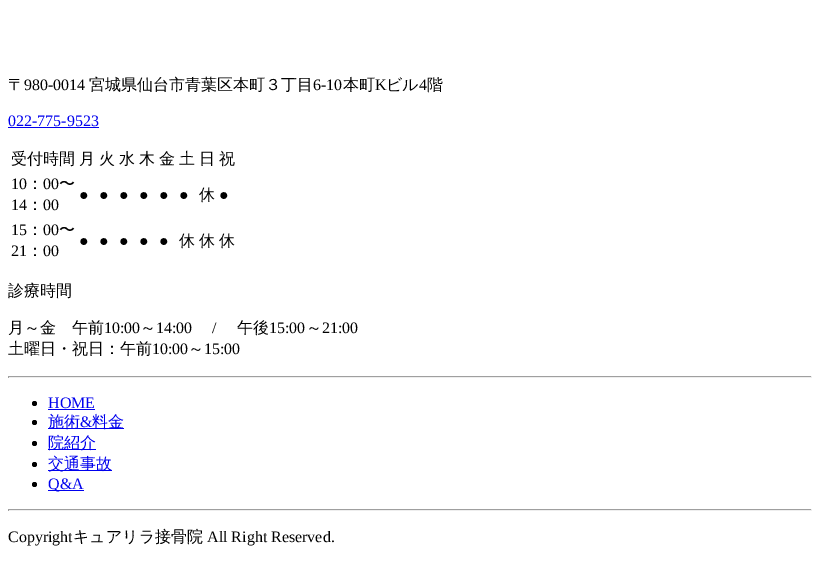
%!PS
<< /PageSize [820 564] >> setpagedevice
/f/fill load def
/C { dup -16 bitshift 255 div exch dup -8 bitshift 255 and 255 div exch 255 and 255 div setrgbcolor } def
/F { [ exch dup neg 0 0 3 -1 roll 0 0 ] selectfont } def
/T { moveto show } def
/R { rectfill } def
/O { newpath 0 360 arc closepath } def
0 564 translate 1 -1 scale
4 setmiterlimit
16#FFFFFF C
0 0 820 564 R
/WenQuanYiZenHei-Medium 16 F
16#000000 C
(〒) 8 90 T
/LiberationSerif-Regular 16 F
(980-0014) 24 90 T
/WenQuanYiZenHei-Medium 16 F
(宮城県仙台市青葉区本町３丁目) 89 90 T
/LiberationSerif-Regular 16 F
(6-10) 313 90 T
/WenQuanYiZenHei-Medium 16 F
(本町) 343 90 T
/LiberationSerif-Regular 16 F
(K) 375 90 T
/WenQuanYiZenHei-Medium 16 F
(ビル) 386 90 T
/LiberationSerif-Regular 16 F
(4) 419 90 T
/WenQuanYiZenHei-Medium 16 F
(階) 427 90 T
/LiberationSerif-Regular 16 F
16#0000EE C
(022-775-9523) 8 126 T
8 127 91 1 R
/WenQuanYiZenHei-Medium 16 F
16#000000 C
(受付時間) 11 164 T
(月) 79 164 T
(火) 99 164 T
(水) 119 164 T
(木) 139 164 T
(金) 159 164 T
(土) 179 164 T
(日) 199 164 T
(祝) 219 164 T
/LiberationSerif-Regular 16 F
(10) 11 189 T
/WenQuanYiZenHei-Medium 16 F
(：) 27 189 T
/LiberationSerif-Regular 16 F
(00) 43 189 T
/WenQuanYiZenHei-Medium 16 F
(〜) 59 189 T
/LiberationSerif-Regular 16 F
(14) 11 210 T
/WenQuanYiZenHei-Medium 16 F
(：) 27 210 T
/LiberationSerif-Regular 16 F
(00) 43 210 T
(●) 79 200 T
(●) 99 200 T
(●) 119 200 T
(●) 139 200 T
(●) 159 200 T
(●) 179 200 T
/WenQuanYiZenHei-Medium 16 F
(休) 199 200 T
/LiberationSerif-Regular 16 F
(●) 219 200 T
(15) 11 235 T
/WenQuanYiZenHei-Medium 16 F
(：) 27 235 T
/LiberationSerif-Regular 16 F
(00) 43 235 T
/WenQuanYiZenHei-Medium 16 F
(〜) 59 235 T
/LiberationSerif-Regular 16 F
(21) 11 256 T
/WenQuanYiZenHei-Medium 16 F
(：) 27 256 T
/LiberationSerif-Regular 16 F
(00) 43 256 T
(●) 79 246 T
(●) 99 246 T
(●) 119 246 T
(●) 139 246 T
(●) 159 246 T
/WenQuanYiZenHei-Medium 16 F
(休) 179 246 T
(休) 199 246 T
(休) 219 246 T
(診療時間) 8 296 T
(月～金) 8 333 T
(午前) 72 333 T
/LiberationSerif-Regular 16 F
(10:00) 104 333 T
/WenQuanYiZenHei-Medium 16 F
(～) 140 333 T
/LiberationSerif-Regular 16 F
(14:00  /) 156 333 T
/WenQuanYiZenHei-Medium 16 F
(午後) 237 333 T
/LiberationSerif-Regular 16 F
(15:00) 269 333 T
/WenQuanYiZenHei-Medium 16 F
(～) 306 333 T
/LiberationSerif-Regular 16 F
(21:00) 322 333 T
/WenQuanYiZenHei-Medium 16 F
(土曜日・祝日：午前) 8 354 T
/LiberationSerif-Regular 16 F
(10:00) 152 354 T
/WenQuanYiZenHei-Medium 16 F
(～) 188 354 T
/LiberationSerif-Regular 16 F
(15:00) 204 354 T
16#9F9F9F C
8 376 804 1 R
16#EEEEEE C
811 376 1 2 R
8 377 804 1 R
16#9F9F9F C
8 376 1 2 R
16#000000 C
34.5 403.5 2.5 O f
16#0000EE C
(HOME) 48 408 T
48 409 47 1 R
16#000000 C
34.5 422.5 2.5 O f
16#0000EE C
48 428 76 1 R
/WenQuanYiZenHei-Medium 16 F
(施術) 48 427 T
/LiberationSerif-Regular 16 F
(&) 80 427 T
/WenQuanYiZenHei-Medium 16 F
(料金) 92 427 T
16#000000 C
34.5 443.5 2.5 O f
16#0000EE C
48 449 48 1 R
(院紹介) 48 448 T
16#000000 C
34.5 464.5 2.5 O f
16#0000EE C
48 470 64 1 R
(交通事故) 48 469 T
16#000000 C
34.5 484.5 2.5 O f
16#0000EE C
48 490 36 1 R
/LiberationSerif-Regular 16 F
(Q&A) 48 489 T
16#9F9F9F C
8 509 804 1 R
16#EEEEEE C
811 509 1 2 R
8 510 804 1 R
16#9F9F9F C
8 509 1 2 R
16#000000 C
(Copyright) 8 542 T
/WenQuanYiZenHei-Medium 16 F
(キュアリラ接骨院) 73 542 T
/LiberationSerif-Regular 16 F
(All Right Reserved.) 207 542 T
showpage
